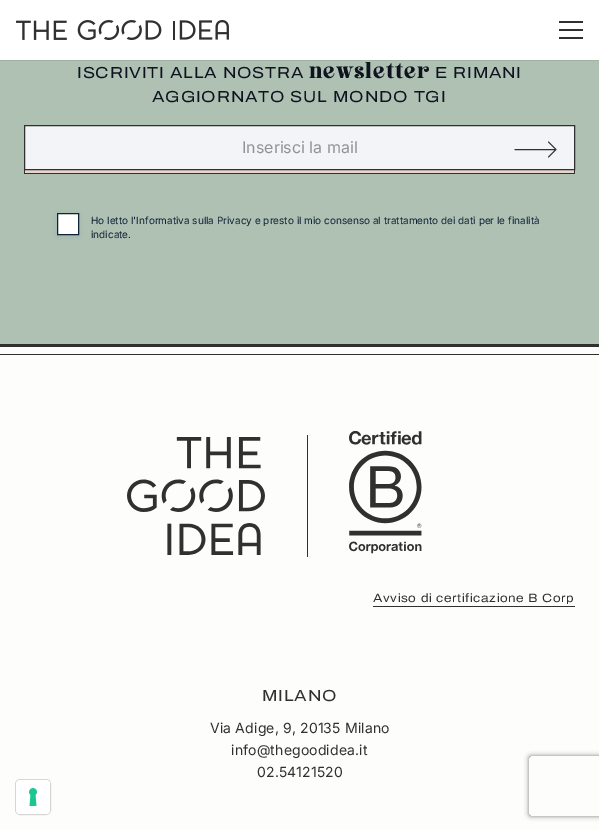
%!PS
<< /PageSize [599 830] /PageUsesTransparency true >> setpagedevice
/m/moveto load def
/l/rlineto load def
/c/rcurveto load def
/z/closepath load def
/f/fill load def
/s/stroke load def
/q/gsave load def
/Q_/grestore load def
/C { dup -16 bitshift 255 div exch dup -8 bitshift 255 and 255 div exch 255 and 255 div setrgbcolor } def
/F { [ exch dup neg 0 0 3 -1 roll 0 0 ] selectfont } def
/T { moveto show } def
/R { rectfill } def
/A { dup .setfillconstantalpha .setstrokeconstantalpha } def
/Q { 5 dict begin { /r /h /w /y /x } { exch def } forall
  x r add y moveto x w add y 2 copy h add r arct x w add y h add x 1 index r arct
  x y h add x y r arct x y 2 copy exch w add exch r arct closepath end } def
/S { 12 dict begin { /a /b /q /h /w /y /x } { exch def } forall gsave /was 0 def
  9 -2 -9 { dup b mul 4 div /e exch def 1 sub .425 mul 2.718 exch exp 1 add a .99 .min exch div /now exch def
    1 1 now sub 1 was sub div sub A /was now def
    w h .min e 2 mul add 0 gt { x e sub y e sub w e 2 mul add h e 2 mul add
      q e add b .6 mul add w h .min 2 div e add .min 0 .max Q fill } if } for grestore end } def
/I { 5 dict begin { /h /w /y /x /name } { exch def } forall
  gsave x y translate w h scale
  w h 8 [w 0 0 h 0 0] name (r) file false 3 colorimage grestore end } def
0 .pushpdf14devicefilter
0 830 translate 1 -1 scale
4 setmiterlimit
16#FDFDFB C
0 0 599 830 R
16#A0B2A5 C
0 60 599 1 R
16#FFFFFF C
0 0 599 60 R
(1.rgb) 16 20 213 20 I
16#303030 C
559 29 24 2 R
559 21 24 2 R
559 37 24 2 R
16#AEC1B3 C
0 61 599 283 R
16#303030 C
0 344 599 3 R
/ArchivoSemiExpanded-Regular 16 F
16#0F131F C
77 78 m .8 0 (ISCRIVITI ALLA NOSTRA) ashow
/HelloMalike-Regular 22 F
309 78 m .75 0 (newsletter) ashow
/ArchivoSemiExpanded-Regular 16 F
435 78 m .8 0 (E RIMANI) ashow
152 102 m .8 0 (AGGIORNATO SUL MONDO TGI) ashow
16#303030 C
24 170 551 4 R
16#E7D5CC C
25 170 549 3 R
16#F2F4F7 C
24.5 125.5 m 550 0 l 0 44 l -550 0 l z q f Q_
16#303030 C
s
/Inter-Regular 16 F
16#919294 C
(Inserisci la mail) 242 153 T
16#121961 C
57 214 22 22 0 2 .08 S
16#FFFFFF C
57.5 213.5 m 21 0 l 0 21 l -21 0 l z q f Q_
16#112337 C
s
/Inter-Regular 10 F
(Ho letto l'Informativa sulla Privacy e presto il mio consenso al trattamento dei dati per le finalità) 91 224 T
(indicate.) 91 238 T
q
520 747 m 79 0 l 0 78 l -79 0 l z 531 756 m 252 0 l 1 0 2 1 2 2 c 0 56 l 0 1 -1 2 -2 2 c -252 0 l -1 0 -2 -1 -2 -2 c 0 -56 l 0 -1 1 -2 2 -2 c z eoclip newpath
16#808080 C
529 756 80 60 2 2.5 1 S
Q_
16#303030 C
1 setlinecap
1 setlinejoin
515 149.5 m 41 0 l 556 149.5 m -7.5 -7.5 l 556 149.5 m -7.5 7.5 l s
0 354 599 1 R
(2.rgb) 127 431 295 126 I
/ArchivoSemiExpanded-Regular 12 F
373 602 m .6 0 (Avviso di certificazione B Corp) ashow
373 606 202 1 R
/ArchivoSemiExpanded-Regular 16 F
262 701 m .8 0 (MILANO) ashow
/Inter-Regular 14 F
210 733 m .15 0 (Via Adige, 9, 20135 Milano) ashow
231 755 m .15 0 (info@thegoodidea.it) ashow
257 777 m .15 0 (02.54121520) ashow
16#D7D7D5 C
0 setlinecap
0 setlinejoin
15.5 779.5 35 35 4.5 Q s
16#FFFFFF C
16 780 34 34 4 Q f
(3.rgb) 29 788 8 18 I
.poppdf14devicefilter showpage
